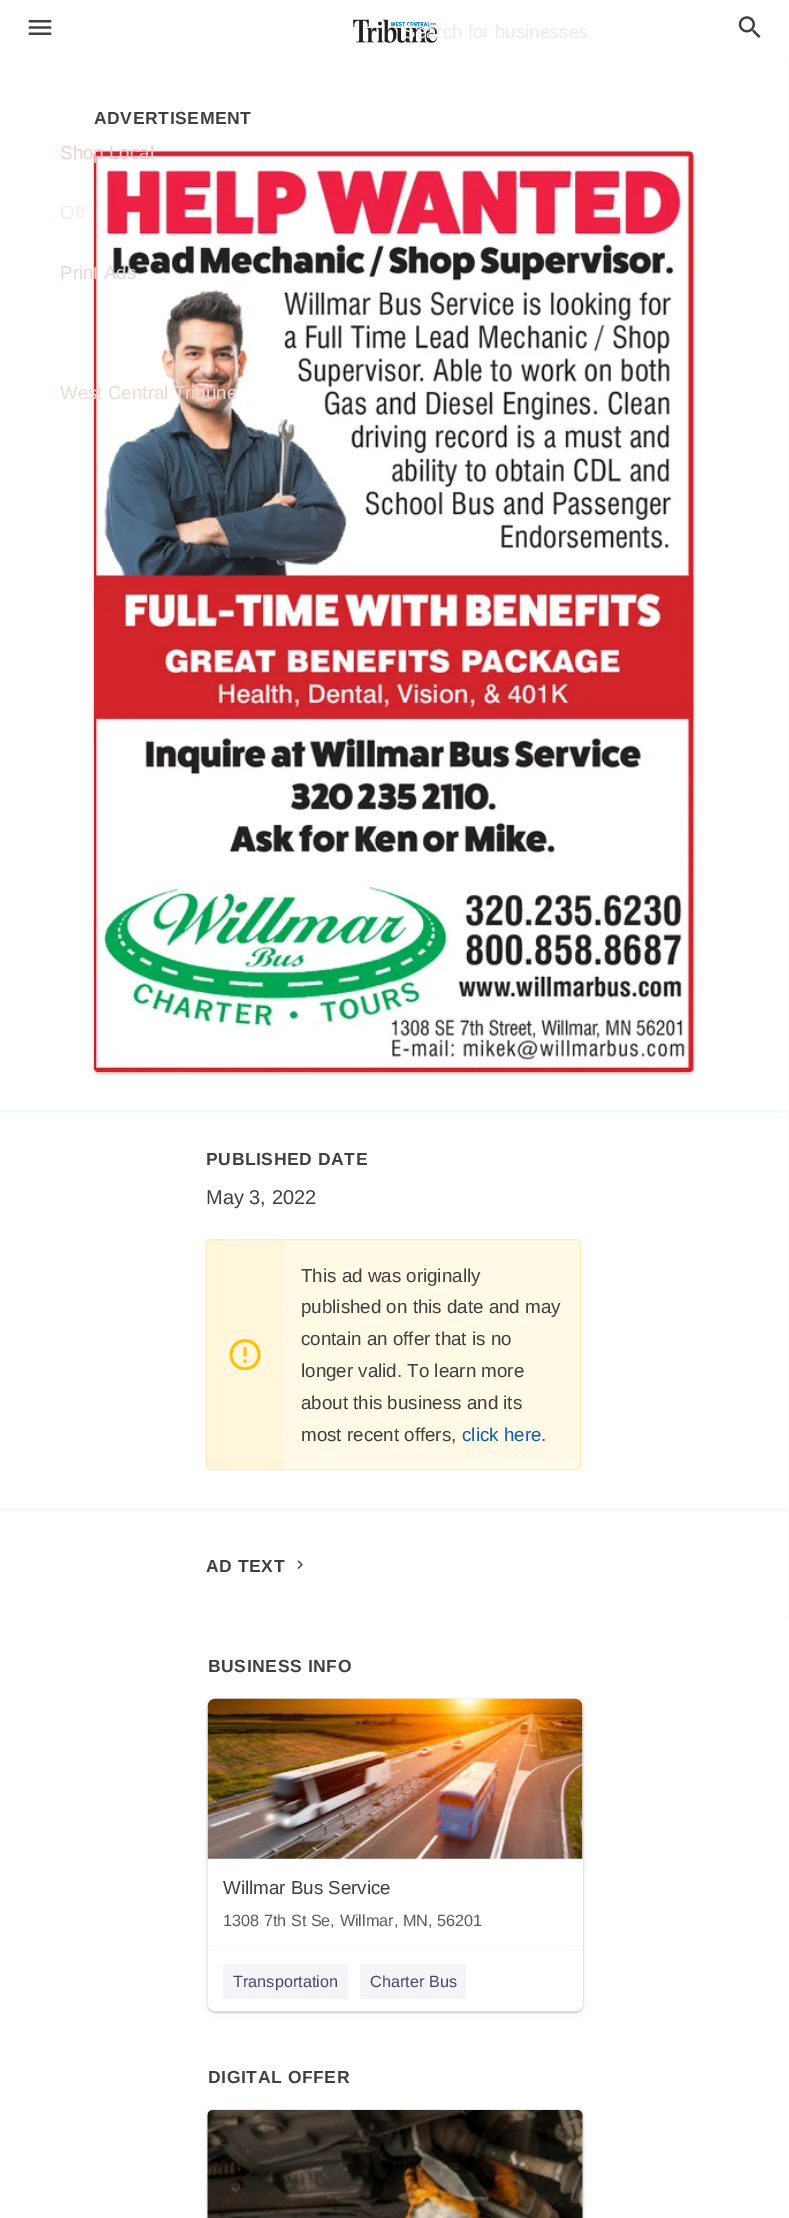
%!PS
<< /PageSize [789 2218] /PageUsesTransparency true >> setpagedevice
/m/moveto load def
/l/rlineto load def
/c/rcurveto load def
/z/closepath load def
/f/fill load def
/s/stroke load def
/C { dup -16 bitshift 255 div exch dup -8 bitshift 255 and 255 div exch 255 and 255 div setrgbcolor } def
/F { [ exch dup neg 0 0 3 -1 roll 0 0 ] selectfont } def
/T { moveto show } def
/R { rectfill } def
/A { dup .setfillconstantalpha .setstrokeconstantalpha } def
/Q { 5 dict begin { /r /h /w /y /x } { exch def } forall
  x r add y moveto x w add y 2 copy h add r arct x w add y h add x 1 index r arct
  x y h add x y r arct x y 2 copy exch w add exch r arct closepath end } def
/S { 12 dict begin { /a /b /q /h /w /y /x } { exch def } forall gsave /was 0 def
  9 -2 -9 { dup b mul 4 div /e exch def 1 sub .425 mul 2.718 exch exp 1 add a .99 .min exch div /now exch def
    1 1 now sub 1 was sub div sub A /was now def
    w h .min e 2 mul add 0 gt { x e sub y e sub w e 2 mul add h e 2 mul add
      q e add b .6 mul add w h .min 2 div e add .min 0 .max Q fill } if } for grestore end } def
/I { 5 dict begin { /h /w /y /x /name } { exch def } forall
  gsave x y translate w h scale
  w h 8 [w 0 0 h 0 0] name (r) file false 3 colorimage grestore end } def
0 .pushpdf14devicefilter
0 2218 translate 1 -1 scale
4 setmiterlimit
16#FFFFFF C
0 0 789 2218 R
(1.rgb) 28 20 24 15 I
(2.rgb) 353 19 84 24 I
/LiberationSans-Regular 18.75 F
16#EAEAEA C
(Search for businesses) 403 38 T
(3.rgb) 738 16 23 22 I
16#3C4257 C
94 154 600 921 5 3 .08 S
0.08 A
93.5 150.5 601 923 5.5 Q s
1 A
16#000000 C
94 153 600 921 5 .5 .08 S
(4.rgb) 93 151 601 922 I
16#F2CBCD C
(Shop Local) 60 159 T
16#FBE8EB C
(Off) 60 219 T
16#E3D9D9 C
(Print Ads) 60 279 T
16#ECDAD4 C
(West Central Tribune) 60 399 T
16#F6F9FC C
788 63 1 1556 R
0 1110 788 3 R
/LiberationSans-Bold 17.5 F
16#404040 C
94 124 m .6 0 (ADVERTISEMENT) ashow
16#F6F9FC C
0 1508 788 3 R
16#404040 C
206 1165 m .6 0 (PUBLISHED DATE) ashow
/LiberationSans-Regular 20 F
(May 3, 2022) 206 1204 T
16#FFF9E6 C
206 1239 375 231 5 Q f
0.2 A
16#FFC107 C
206.5 1239.5 374 230 4.5 Q s
1 A
(5.rgb) 229 1339 32 32 I
0.05 A
208 1240 75 229 R
/LiberationSans-Regular 18.75 F
1 A
16#404040 C
(This ad was originally) 301 1282 T
(published on this date and may) 301 1313 T
(contain an offer that is no) 301 1345 T
(longer valid. To learn more) 301 1377 T
(about this business and its) 301 1409 T
(most recent offers,) 301 1441 T
16#0D60AB C
(click here) 462 1441 T
16#404040 C
(.) 541 1441 T
/LiberationSans-Bold 17.5 F
206 1572 m .6 0 (AD TEXT) ashow
(6.rgb) 297 1560 6 9 I
208 1672 m .6 0 (BUSINESS INFO) ashow
16#3C4257 C
208 1701 375 313 8 3 .08 S
0.08 A
206.5 1698.5 377 314 8.5 Q s
1 A
16#000000 C
208 1700 375 313 8 .5 .08 S
16#FFFFFF C
208 1699 375 312 8 Q f
16#F5F5F5 C
216 1699 m 359 0 l 4.5 0 8 3.5 8 8 c 0 152 l -375 0 l 0 -152 l 0 -4.5 3.5 -8 8 -8 c z f
(7.rgb) 207 1698 376 161 I
/LiberationSans-Regular 18.75 F
16#404040 C
(Willmar Bus Service) 223 1894 T
/LiberationSans-Regular 16.25 F
16#5C5C5C C
(1308 7th St Se, Willmar, MN, 56201) 223 1926 T
16#FFFFFF C
208 1950 m 375 0 l 0 53 l 0 4.5 -3.5 8 -8 8 c -359 0 l -4.5 0 -8 -3.5 -8 -8 c z f
16#F1F7FB C
208 1950 375 1 R
16#F5F5F7 C
223 1964 125 35 2.5 Q f
16#46466C C
(Transportation) 233 1987 T
16#F5F5F7 C
360 1964 106 35 2.5 Q f
16#46466C C
(Charter Bus) 370 1987 T
/LiberationSans-Bold 17.5 F
16#404040 C
208 2083 m .6 0 (DIGITAL OFFER) ashow
16#3C4257 C
208 2113 375 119 5 3 .08 S
0.08 A
206.5 2109.5 377 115 5.5 Q s
1 A
16#000000 C
208 2111 375 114 5 .5 .08 S
(8.rgb) 207 2110 376 108 I
.poppdf14devicefilter showpage
